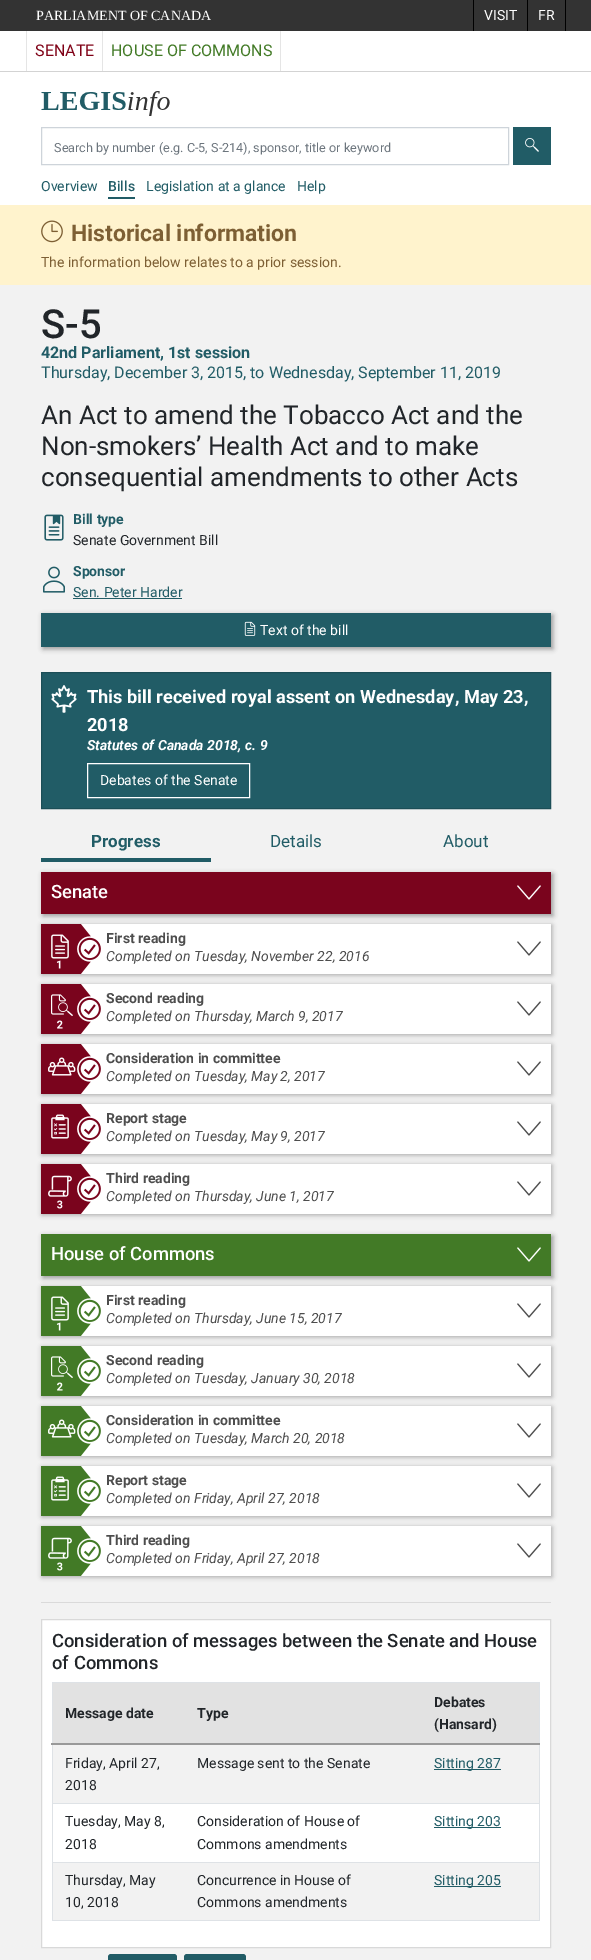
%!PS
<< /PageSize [591 1960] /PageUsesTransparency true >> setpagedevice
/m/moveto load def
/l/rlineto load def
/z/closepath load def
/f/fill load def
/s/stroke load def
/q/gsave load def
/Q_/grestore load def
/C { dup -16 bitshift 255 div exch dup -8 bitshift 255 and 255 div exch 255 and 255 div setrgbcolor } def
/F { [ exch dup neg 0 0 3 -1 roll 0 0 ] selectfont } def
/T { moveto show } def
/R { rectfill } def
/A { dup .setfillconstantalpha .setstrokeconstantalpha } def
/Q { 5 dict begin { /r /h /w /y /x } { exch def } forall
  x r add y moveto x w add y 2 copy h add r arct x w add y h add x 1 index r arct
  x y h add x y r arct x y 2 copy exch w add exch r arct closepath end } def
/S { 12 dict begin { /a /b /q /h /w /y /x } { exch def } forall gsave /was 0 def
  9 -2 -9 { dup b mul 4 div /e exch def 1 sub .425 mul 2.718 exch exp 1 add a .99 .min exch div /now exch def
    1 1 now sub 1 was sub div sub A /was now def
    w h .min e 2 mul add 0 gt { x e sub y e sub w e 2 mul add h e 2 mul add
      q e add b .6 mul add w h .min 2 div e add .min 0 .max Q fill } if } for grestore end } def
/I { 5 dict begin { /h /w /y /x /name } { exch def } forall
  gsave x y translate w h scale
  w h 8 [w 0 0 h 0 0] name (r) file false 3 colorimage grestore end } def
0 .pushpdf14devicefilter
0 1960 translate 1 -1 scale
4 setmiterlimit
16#F2F2F2 C
0 0 591 1960 R
16#333333 C
0 0 591 31 R
/LiberationSerif-Regular 14 F
16#FFFFFF C
(PARLIAMENT OF CANADA) 36 20 T
16#000000 C
473 0 1 31 R
/Roboto-Regular 14 F
16#FFFFFF C
(VISIT) 484 20 T
16#000000 C
565 0 1 31 R
527 0 1 31 R
16#FFFFFF C
(FR) 538 20 T
0 31 591 40 R
16#E5E5E5 C
26 31 1 40 R
/Roboto-Regular 16.1 F
16#7F0116 C
(SENATE) 35 56 T
16#E5E5E5 C
280 31 1 40 R
102 31 1 40 R
16#427A26 C
(HOUSE OF COMMONS) 111 56 T
16#D3D3D3 C
0 71 591 1 R
16#FFFFFF C
0 72 591 133 R
(1.rgb) 41 91 129 25 I
16#CED4DA C
41.5 127.5 467 37 rectstroke
/Roboto-Regular 12.65 F
16#6C757D C
(Search by number \(e.g. C-5, S-214\), sponsor, title or keyword) 54 152 T
16#215C66 C
513 127 38 38 R
(2.rgb) 525 138 14 14 I
/Roboto-Regular 14 F
(Overview) 41 191 T
108 197 27 2 R
/Roboto-Medium 14 F
(Bills) 108 191 T
/Roboto-Regular 14 F
(Legislation at a glance) 146 191 T
(Help) 297 191 T
16#FFF3CD C
0 205 591 80 R
(3.rgb) 41 220 22 23 I
/Roboto-Bold 23 F
16#7D5F34 C
(Historical information) 71 241 T
/Roboto-Regular 14 F
(The information below relates to a prior session.) 41 267 T
/Roboto-Medium 40 F
16#212529 C
(S-5) 41 338 T
/Roboto-Bold 16 F
16#215C66 C
(42nd Parliament, 1st session) 41 358 T
/Roboto-Regular 16 F
(Thursday, December 3, 2015, to Wednesday, September 11, 2019) 41 378 T
/Roboto-Regular 26 F
16#212529 C
(An Act to amend the Tobacco Act and the) 41 424 T
(Non-smokers’ Health Act and to make) 41 455 T
(consequential amendments to other Acts) 41 486 T
(4.rgb) 44 514 20 27 I
/Roboto-Bold 14 F
16#215C66 C
(Bill type) 73 524 T
/Roboto-Regular 14 F
16#212529 C
(Senate Government Bill) 73 545 T
(5.rgb) 43 566 22 27 I
/Roboto-Bold 14 F
16#215C66 C
(Sponsor) 73 576 T
/Roboto-Regular 14 F
(Sen. Peter Harder) 73 597 T
73 598 109 1 R
16#000000 C
43 615 510 34 0 2.5 .35 S
16#215C66 C
41 613 510 34 R
(6.rgb) 244 621 12 15 I
16#FFFFFF C
(Text of the bill) 260 635 T
16#215C66 C
41.5 672.5 m 509 0 l 0 136 l -509 0 l z q f Q_
16#1C4E57 C
s
(7.rgb) 51 685 26 28 I
/Roboto-Bold 18.2 F
16#FFFFFF C
(This bill received royal assent on Wednesday, May 23,) 87 703 T
(2018) 87 731 T
/Roboto-BoldItalic 14 F
(Statutes of Canada 2018, c. 9) 87 750 T
87.5 763.5 162 34 rectstroke
/Roboto-Regular 14 F
(Debates of the Senate) 100 785 T
16#215C66 C
41 858 170 4 R
/Roboto-Bold 17 F
(Progress) 91 847 T
/Roboto-Regular 17 F
(Details) 270 847 T
(About) 443 847 T
16#000000 C
43 874 510 42 0 2.5 .35 S
16#7A041D C
41 872 510 42 R
/Roboto-Medium 18.4 F
16#FFFFFF C
(Senate) 51 898 T
(8.rgb) 517 885 24 15 I
16#000000 C
42 925 510 50 0 2.5 .3 S
16#FFFFFF C
77 924 474 50 R
(9.rgb) 41 924 60 50 I
(10.rgb) 51 934 18 25 I
(11.rgb) 56 960 5 9 I
/Roboto-Bold 14 F
16#4D4D4D C
(First reading) 106 943 T
/Roboto-Italic 14 F
(Completed on Tuesday, November 22, 2016) 106 961 T
(12.rgb) 517 941 24 15 I
16#000000 C
42 985 510 50 0 2.5 .3 S
16#FFFFFF C
77 984 474 50 R
(9.rgb) 41 984 60 50 I
(13.rgb) 51 994 22 22 I
(14.rgb) 57 1020 6 9 I
/Roboto-Bold 14 F
16#4D4D4D C
(Second reading) 106 1003 T
/Roboto-Italic 14 F
(Completed on Thursday, March 9, 2017) 106 1021 T
(12.rgb) 517 1001 24 15 I
16#000000 C
42 1045 510 50 0 2.5 .3 S
16#FFFFFF C
77 1044 474 50 R
(9.rgb) 41 1044 60 50 I
(15.rgb) 48 1057 28 19 I
/Roboto-Bold 14 F
16#4D4D4D C
(Consideration in committee) 106 1063 T
/Roboto-Italic 14 F
(Completed on Tuesday, May 2, 2017) 106 1081 T
(12.rgb) 517 1061 24 15 I
16#000000 C
42 1105 510 50 0 2.5 .3 S
16#FFFFFF C
77 1104 474 50 R
(9.rgb) 41 1104 60 50 I
(16.rgb) 51 1114 18 25 I
/Roboto-Bold 14 F
16#4D4D4D C
(Report stage) 106 1123 T
/Roboto-Italic 14 F
(Completed on Tuesday, May 9, 2017) 106 1141 T
(12.rgb) 517 1121 24 15 I
16#000000 C
42 1165 510 50 0 2.5 .3 S
16#FFFFFF C
77 1164 474 50 R
(9.rgb) 41 1164 60 50 I
(17.rgb) 48 1175 24 22 I
(18.rgb) 57 1200 6 9 I
/Roboto-Bold 14 F
16#4D4D4D C
(Third reading) 106 1183 T
/Roboto-Italic 14 F
(Completed on Thursday, June 1, 2017) 106 1201 T
(12.rgb) 517 1181 24 15 I
16#000000 C
43 1236 510 42 0 2.5 .35 S
16#427A26 C
41 1234 510 42 R
/Roboto-Medium 18.4 F
16#FFFFFF C
(House of Commons) 51 1260 T
(19.rgb) 517 1247 24 15 I
16#000000 C
42 1287 510 50 0 2.5 .3 S
16#FFFFFF C
77 1286 474 50 R
(20.rgb) 41 1286 60 50 I
(21.rgb) 51 1296 18 25 I
(22.rgb) 56 1322 5 9 I
/Roboto-Bold 14 F
16#4D4D4D C
(First reading) 106 1305 T
/Roboto-Italic 14 F
(Completed on Thursday, June 15, 2017) 106 1323 T
(12.rgb) 517 1303 24 15 I
16#000000 C
42 1347 510 50 0 2.5 .3 S
16#FFFFFF C
77 1346 474 50 R
(20.rgb) 41 1346 60 50 I
(23.rgb) 51 1356 22 22 I
(24.rgb) 57 1382 6 9 I
/Roboto-Bold 14 F
16#4D4D4D C
(Second reading) 106 1365 T
/Roboto-Italic 14 F
(Completed on Tuesday, January 30, 2018) 106 1383 T
(12.rgb) 517 1363 24 15 I
16#000000 C
42 1407 510 50 0 2.5 .3 S
16#FFFFFF C
77 1406 474 50 R
(20.rgb) 41 1406 60 50 I
(25.rgb) 48 1419 28 19 I
/Roboto-Bold 14 F
16#4D4D4D C
(Consideration in committee) 106 1425 T
/Roboto-Italic 14 F
(Completed on Tuesday, March 20, 2018) 106 1443 T
(12.rgb) 517 1423 24 15 I
16#000000 C
42 1467 510 50 0 2.5 .3 S
16#FFFFFF C
77 1466 474 50 R
(20.rgb) 41 1466 60 50 I
(26.rgb) 51 1476 18 25 I
/Roboto-Bold 14 F
16#4D4D4D C
(Report stage) 106 1485 T
/Roboto-Italic 14 F
(Completed on Friday, April 27, 2018) 106 1503 T
(12.rgb) 517 1483 24 15 I
16#000000 C
42 1527 510 50 0 2.5 .3 S
16#FFFFFF C
77 1526 474 50 R
(20.rgb) 41 1526 60 50 I
(27.rgb) 48 1537 24 22 I
(28.rgb) 57 1562 6 9 I
/Roboto-Bold 14 F
16#4D4D4D C
(Third reading) 106 1545 T
/Roboto-Italic 14 F
(Completed on Friday, April 27, 2018) 106 1563 T
(12.rgb) 517 1543 24 15 I
16#DADADA C
41 1602 510 1 R
16#FFFFFF C
41.5 1619.5 m 509 0 l 0 328 l -509 0 l z q f Q_
16#D9D9D9 C
s
/Roboto-Medium 18.4 F
16#212529 C
(Consideration of messages between the Senate and House) 52 1647 T
(of Commons) 52 1669 T
16#DEE2E6 C
52 1682 488 1 R
539 1682 1 239 R
52 1920 488 1 R
52 1682 1 239 R
16#E2E2E2 C
53 1683 486 60 R
/Roboto-Bold 14 F
16#212529 C
(Message date) 65 1718 T
(Type) 197 1718 T
16#999999 C
51 1743 489 2 R
16#212529 C
(Debates) 434 1707 T
(\(Hansard\)) 434 1729 T
16#F2F2F2 C
53 1745 486 58 R
/Roboto-Regular 14 F
16#212529 C
(Friday, April 27,) 65 1768 T
(2018) 65 1790 T
(Message sent to the Senate) 197 1768 T
16#215C66 C
434 1769 67 1 R
(Sitting 287) 434 1768 T
16#212529 C
(Tuesday, May 8,) 65 1826 T
(2018) 65 1849 T
(Consideration of House of) 197 1826 T
(Commons amendments) 197 1849 T
16#DEE2E6 C
52 1803 488 1 R
16#215C66 C
434 1827 67 1 R
(Sitting 203) 434 1826 T
16#F2F2F2 C
53 1863 486 57 R
16#212529 C
(Thursday, May) 65 1885 T
(10, 2018) 65 1907 T
(Concurrence in House of) 197 1885 T
(Commons amendments) 197 1907 T
16#DEE2E6 C
52 1862 488 1 R
16#215C66 C
434 1886 67 1 R
(Sitting 205) 434 1885 T
108 1954 69 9 3 Q f
184 1954 62 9 3 Q f
.poppdf14devicefilter showpage
